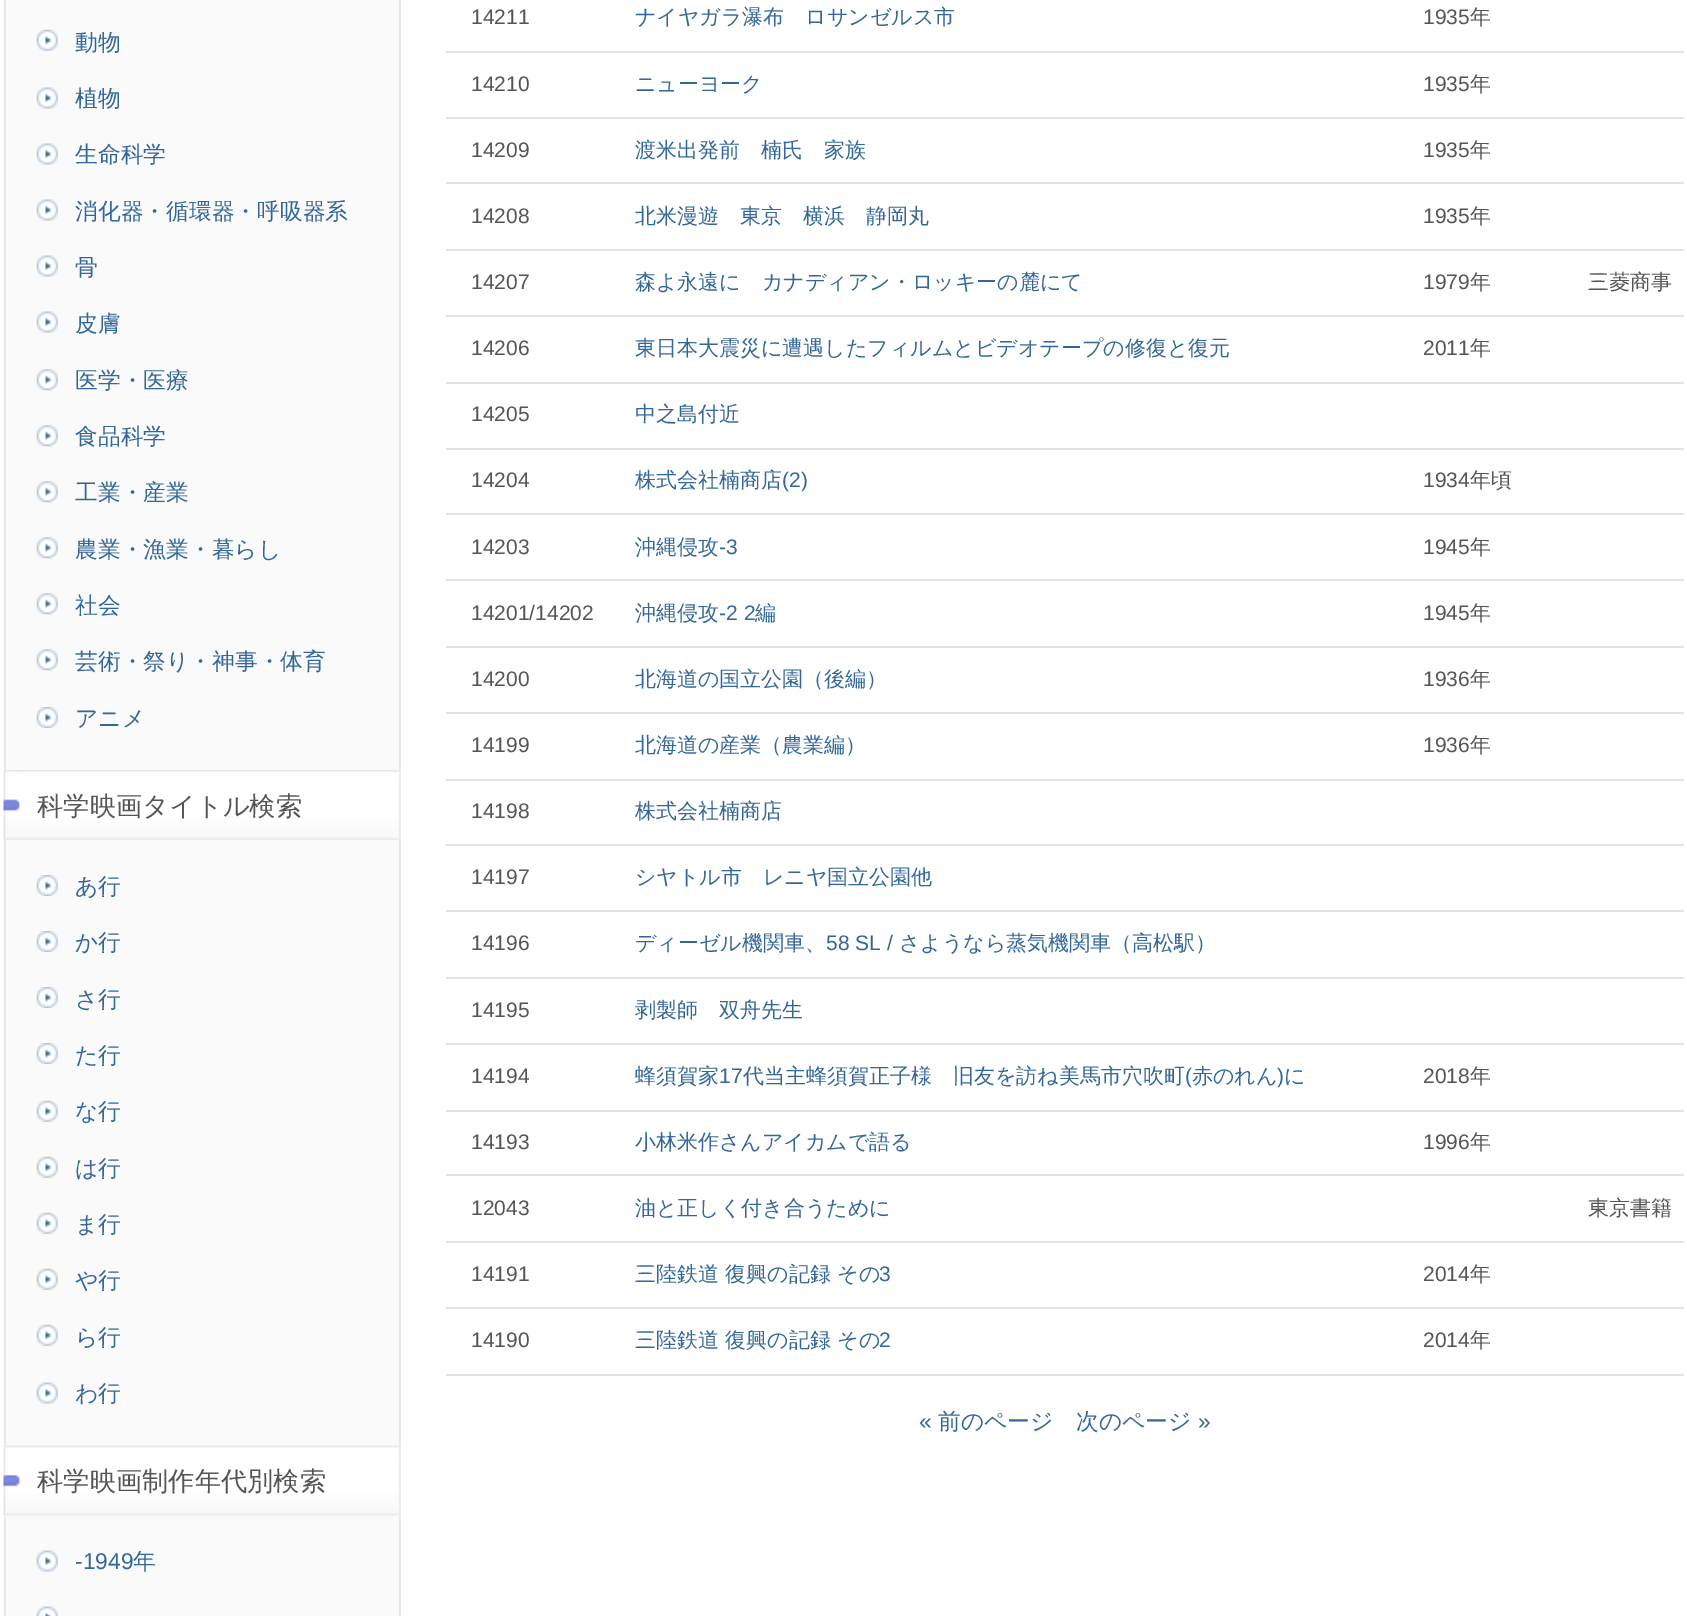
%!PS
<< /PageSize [1687 1616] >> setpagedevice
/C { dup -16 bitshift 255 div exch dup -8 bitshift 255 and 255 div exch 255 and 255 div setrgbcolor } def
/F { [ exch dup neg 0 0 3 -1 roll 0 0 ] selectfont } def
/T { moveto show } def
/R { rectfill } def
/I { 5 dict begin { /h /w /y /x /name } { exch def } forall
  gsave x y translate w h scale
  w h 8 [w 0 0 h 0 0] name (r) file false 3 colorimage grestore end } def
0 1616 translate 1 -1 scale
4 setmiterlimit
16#FFFFFF C
0 0 1687 1616 R
16#FAFAFA C
6 0 393 770 R
16#E8E8E8 C
399 0 2 770 R
4 0 2 770 R
(1.rgb) 36 29 22 22 I
/WenQuanYiZenHei-Medium 22.75 F
16#336699 C
(動物) 75 50 T
(2.rgb) 36 87 22 22 I
(植物) 75 106 T
(2.rgb) 36 143 22 22 I
(生命科学) 75 162 T
(2.rgb) 36 199 22 22 I
(消化器・循環器・呼吸器系) 75 219 T
(2.rgb) 36 255 22 22 I
(骨) 75 275 T
(2.rgb) 36 311 22 22 I
(皮膚) 75 331 T
(3.rgb) 36 369 22 22 I
(医学・医療) 75 388 T
(3.rgb) 36 425 22 22 I
(食品科学) 75 444 T
(3.rgb) 36 481 22 22 I
(工業・産業) 75 500 T
(3.rgb) 36 537 22 22 I
(農業・漁業・暮らし) 75 557 T
(4.rgb) 36 593 22 22 I
(社会) 75 613 T
(3.rgb) 36 649 22 22 I
(芸術・祭り・神事・体育) 75 669 T
(5.rgb) 36 707 22 21 I
(アニメ) 75 726 T
(6.rgb) 3 770 398 70 I
/WenQuanYiZenHei-Medium 26.25 F
16#555555 C
(科学映画タイトル検索) 37 815 T
16#FAFAFA C
6 840 393 605 R
16#E8E8E8 C
399 840 2 606 R
4 840 2 606 R
(5.rgb) 36 875 22 21 I
/WenQuanYiZenHei-Medium 22.75 F
16#336699 C
(あ行) 75 894 T
(5.rgb) 36 931 22 21 I
(か行) 75 950 T
(5.rgb) 36 987 22 21 I
(さ行) 75 1007 T
(5.rgb) 36 1043 22 21 I
(た行) 75 1063 T
(1.rgb) 36 1100 22 22 I
(な行) 75 1119 T
(1.rgb) 36 1156 22 22 I
(は行) 75 1176 T
(1.rgb) 36 1212 22 22 I
(ま行) 75 1232 T
(1.rgb) 36 1268 22 22 I
(や行) 75 1288 T
(1.rgb) 36 1324 22 22 I
(ら行) 75 1345 T
(2.rgb) 36 1382 22 22 I
(わ行) 75 1401 T
(7.rgb) 3 1445 398 71 I
/WenQuanYiZenHei-Medium 26.25 F
16#555555 C
(科学映画制作年代別検索) 37 1490 T
16#FAFAFA C
6 1516 393 100 R
16#E8E8E8 C
399 1516 2 100 R
4 1516 2 100 R
(2.rgb) 36 1550 22 22 I
/LiberationSans-Regular 22.75 F
16#336699 C
(-1949) 75 1569 T
/WenQuanYiZenHei-Medium 22.75 F
(年) 133 1569 T
(8.rgb) 36 1606 22 10 I
16#E0E4E8 C
446 51 1238 2 R
/LiberationSans-Regular 21 F
16#555555 C
(14211) 471 24 T
/WenQuanYiZenHei-Medium 21 F
16#336699 C
(ナイヤガラ瀑布　ロサンゼルス市) 635 24 T
/LiberationSans-Regular 21 F
16#555555 C
(1935) 1423 24 T
/WenQuanYiZenHei-Medium 21 F
(年) 1470 24 T
16#E0E4E8 C
446 117 1238 2 R
/LiberationSans-Regular 21 F
16#555555 C
(14210) 471 91 T
/WenQuanYiZenHei-Medium 21 F
16#336699 C
(ニューヨーク) 635 91 T
/LiberationSans-Regular 21 F
16#555555 C
(1935) 1423 91 T
/WenQuanYiZenHei-Medium 21 F
(年) 1470 91 T
16#E0E4E8 C
446 182 1238 2 R
/LiberationSans-Regular 21 F
16#555555 C
(14209) 471 157 T
/WenQuanYiZenHei-Medium 21 F
16#336699 C
(渡米出発前　楠氏　家族) 635 157 T
/LiberationSans-Regular 21 F
16#555555 C
(1935) 1423 157 T
/WenQuanYiZenHei-Medium 21 F
(年) 1470 157 T
16#E0E4E8 C
446 249 1238 2 R
/LiberationSans-Regular 21 F
16#555555 C
(14208) 471 223 T
/WenQuanYiZenHei-Medium 21 F
16#336699 C
(北米漫遊　東京　横浜　静岡丸) 635 223 T
/LiberationSans-Regular 21 F
16#555555 C
(1935) 1423 223 T
/WenQuanYiZenHei-Medium 21 F
(年) 1470 223 T
16#E0E4E8 C
446 315 1238 2 R
/LiberationSans-Regular 21 F
16#555555 C
(14207) 471 289 T
/WenQuanYiZenHei-Medium 21 F
16#336699 C
(森よ永遠に　カナディアン・ロッキーの麓にて) 635 289 T
/LiberationSans-Regular 21 F
16#555555 C
(1979) 1423 289 T
/WenQuanYiZenHei-Medium 21 F
(年) 1470 289 T
(三菱商事) 1588 289 T
16#E0E4E8 C
446 382 1238 2 R
/LiberationSans-Regular 21 F
16#555555 C
(14206) 471 355 T
/WenQuanYiZenHei-Medium 21 F
16#336699 C
(東日本大震災に遭遇したフィルムとビデオテープの修復と復元) 635 355 T
/LiberationSans-Regular 21 F
16#555555 C
(2011) 1423 355 T
/WenQuanYiZenHei-Medium 21 F
(年) 1470 355 T
16#E0E4E8 C
446 448 1238 2 R
/LiberationSans-Regular 21 F
16#555555 C
(14205) 471 421 T
/WenQuanYiZenHei-Medium 21 F
16#336699 C
(中之島付近) 635 421 T
16#E0E4E8 C
446 513 1238 2 R
/LiberationSans-Regular 21 F
16#555555 C
(14204) 471 487 T
/WenQuanYiZenHei-Medium 21 F
16#336699 C
(株式会社楠商店) 635 487 T
/LiberationSans-Regular 21 F
(\(2\)) 782 487 T
16#555555 C
(1934) 1423 487 T
/WenQuanYiZenHei-Medium 21 F
(年頃) 1470 487 T
16#E0E4E8 C
446 579 1238 2 R
/LiberationSans-Regular 21 F
16#555555 C
(14203) 471 554 T
/WenQuanYiZenHei-Medium 21 F
16#336699 C
(沖縄侵攻) 635 554 T
/LiberationSans-Regular 21 F
(-3) 719 554 T
16#555555 C
(1945) 1423 554 T
/WenQuanYiZenHei-Medium 21 F
(年) 1470 554 T
16#E0E4E8 C
446 646 1238 2 R
/LiberationSans-Regular 21 F
16#555555 C
(14201/14202) 471 620 T
/WenQuanYiZenHei-Medium 21 F
16#336699 C
(沖縄侵攻) 635 620 T
/LiberationSans-Regular 21 F
(-2 2) 719 620 T
/WenQuanYiZenHei-Medium 21 F
(編) 755 620 T
/LiberationSans-Regular 21 F
16#555555 C
(1945) 1423 620 T
/WenQuanYiZenHei-Medium 21 F
(年) 1470 620 T
16#E0E4E8 C
446 712 1238 2 R
/LiberationSans-Regular 21 F
16#555555 C
(14200) 471 686 T
/WenQuanYiZenHei-Medium 21 F
16#336699 C
(北海道の国立公園（後編）) 635 686 T
/LiberationSans-Regular 21 F
16#555555 C
(1936) 1423 686 T
/WenQuanYiZenHei-Medium 21 F
(年) 1470 686 T
16#E0E4E8 C
446 779 1238 2 R
/LiberationSans-Regular 21 F
16#555555 C
(14199) 471 752 T
/WenQuanYiZenHei-Medium 21 F
16#336699 C
(北海道の産業（農業編）) 635 752 T
/LiberationSans-Regular 21 F
16#555555 C
(1936) 1423 752 T
/WenQuanYiZenHei-Medium 21 F
(年) 1470 752 T
16#E0E4E8 C
446 844 1238 2 R
/LiberationSans-Regular 21 F
16#555555 C
(14198) 471 818 T
/WenQuanYiZenHei-Medium 21 F
16#336699 C
(株式会社楠商店) 635 818 T
16#E0E4E8 C
446 910 1238 2 R
/LiberationSans-Regular 21 F
16#555555 C
(14197) 471 884 T
/WenQuanYiZenHei-Medium 21 F
16#336699 C
(シヤトル市　レニヤ国立公園他) 635 884 T
16#E0E4E8 C
446 977 1238 2 R
/LiberationSans-Regular 21 F
16#555555 C
(14196) 471 950 T
/WenQuanYiZenHei-Medium 21 F
16#336699 C
(ディーゼル機関車、) 635 950 T
/LiberationSans-Regular 21 F
(58 SL /) 826 950 T
/WenQuanYiZenHei-Medium 21 F
(さようなら蒸気機関車（高松駅）) 899 950 T
16#E0E4E8 C
446 1043 1238 2 R
/LiberationSans-Regular 21 F
16#555555 C
(14195) 471 1017 T
/WenQuanYiZenHei-Medium 21 F
16#336699 C
(剥製師　双舟先生) 635 1017 T
16#E0E4E8 C
446 1110 1238 2 R
/LiberationSans-Regular 21 F
16#555555 C
(14194) 471 1083 T
/WenQuanYiZenHei-Medium 21 F
16#336699 C
(蜂須賀家) 635 1083 T
/LiberationSans-Regular 21 F
(17) 719 1083 T
/WenQuanYiZenHei-Medium 21 F
(代当主蜂須賀正子様　旧友を訪ね美馬市穴吹町) 743 1083 T
/LiberationSans-Regular 21 F
(\() 1185 1083 T
/WenQuanYiZenHei-Medium 21 F
(赤のれん) 1192 1083 T
/LiberationSans-Regular 21 F
(\)) 1277 1083 T
/WenQuanYiZenHei-Medium 21 F
(に) 1284 1083 T
/LiberationSans-Regular 21 F
16#555555 C
(2018) 1423 1083 T
/WenQuanYiZenHei-Medium 21 F
(年) 1470 1083 T
16#E0E4E8 C
446 1174 1238 2 R
/LiberationSans-Regular 21 F
16#555555 C
(14193) 471 1149 T
/WenQuanYiZenHei-Medium 21 F
16#336699 C
(小林米作さんアイカムで語る) 635 1149 T
/LiberationSans-Regular 21 F
16#555555 C
(1996) 1423 1149 T
/WenQuanYiZenHei-Medium 21 F
(年) 1470 1149 T
16#E0E4E8 C
446 1241 1238 2 R
/LiberationSans-Regular 21 F
16#555555 C
(12043) 471 1215 T
/WenQuanYiZenHei-Medium 21 F
16#336699 C
(油と正しく付き合うために) 635 1215 T
16#555555 C
(東京書籍) 1588 1215 T
16#E0E4E8 C
446 1307 1238 2 R
/LiberationSans-Regular 21 F
16#555555 C
(14191) 471 1281 T
/WenQuanYiZenHei-Medium 21 F
16#336699 C
(三陸鉄道 復興の記録 その) 635 1281 T
/LiberationSans-Regular 21 F
(3) 879 1281 T
16#555555 C
(2014) 1423 1281 T
/WenQuanYiZenHei-Medium 21 F
(年) 1470 1281 T
16#E0E4E8 C
446 1374 1238 2 R
/LiberationSans-Regular 21 F
16#555555 C
(14190) 471 1347 T
/WenQuanYiZenHei-Medium 21 F
16#336699 C
(三陸鉄道 復興の記録 その) 635 1347 T
/LiberationSans-Regular 21 F
(2) 879 1347 T
16#555555 C
(2014) 1423 1347 T
/WenQuanYiZenHei-Medium 21 F
(年) 1470 1347 T
/LiberationSans-Regular 22.75 F
16#336699 C
(«) 919 1429 T
/WenQuanYiZenHei-Medium 22.75 F
(前のページ) 938 1429 T
(次のページ) 1076 1429 T
/LiberationSans-Regular 22.75 F
(») 1198 1429 T
showpage
